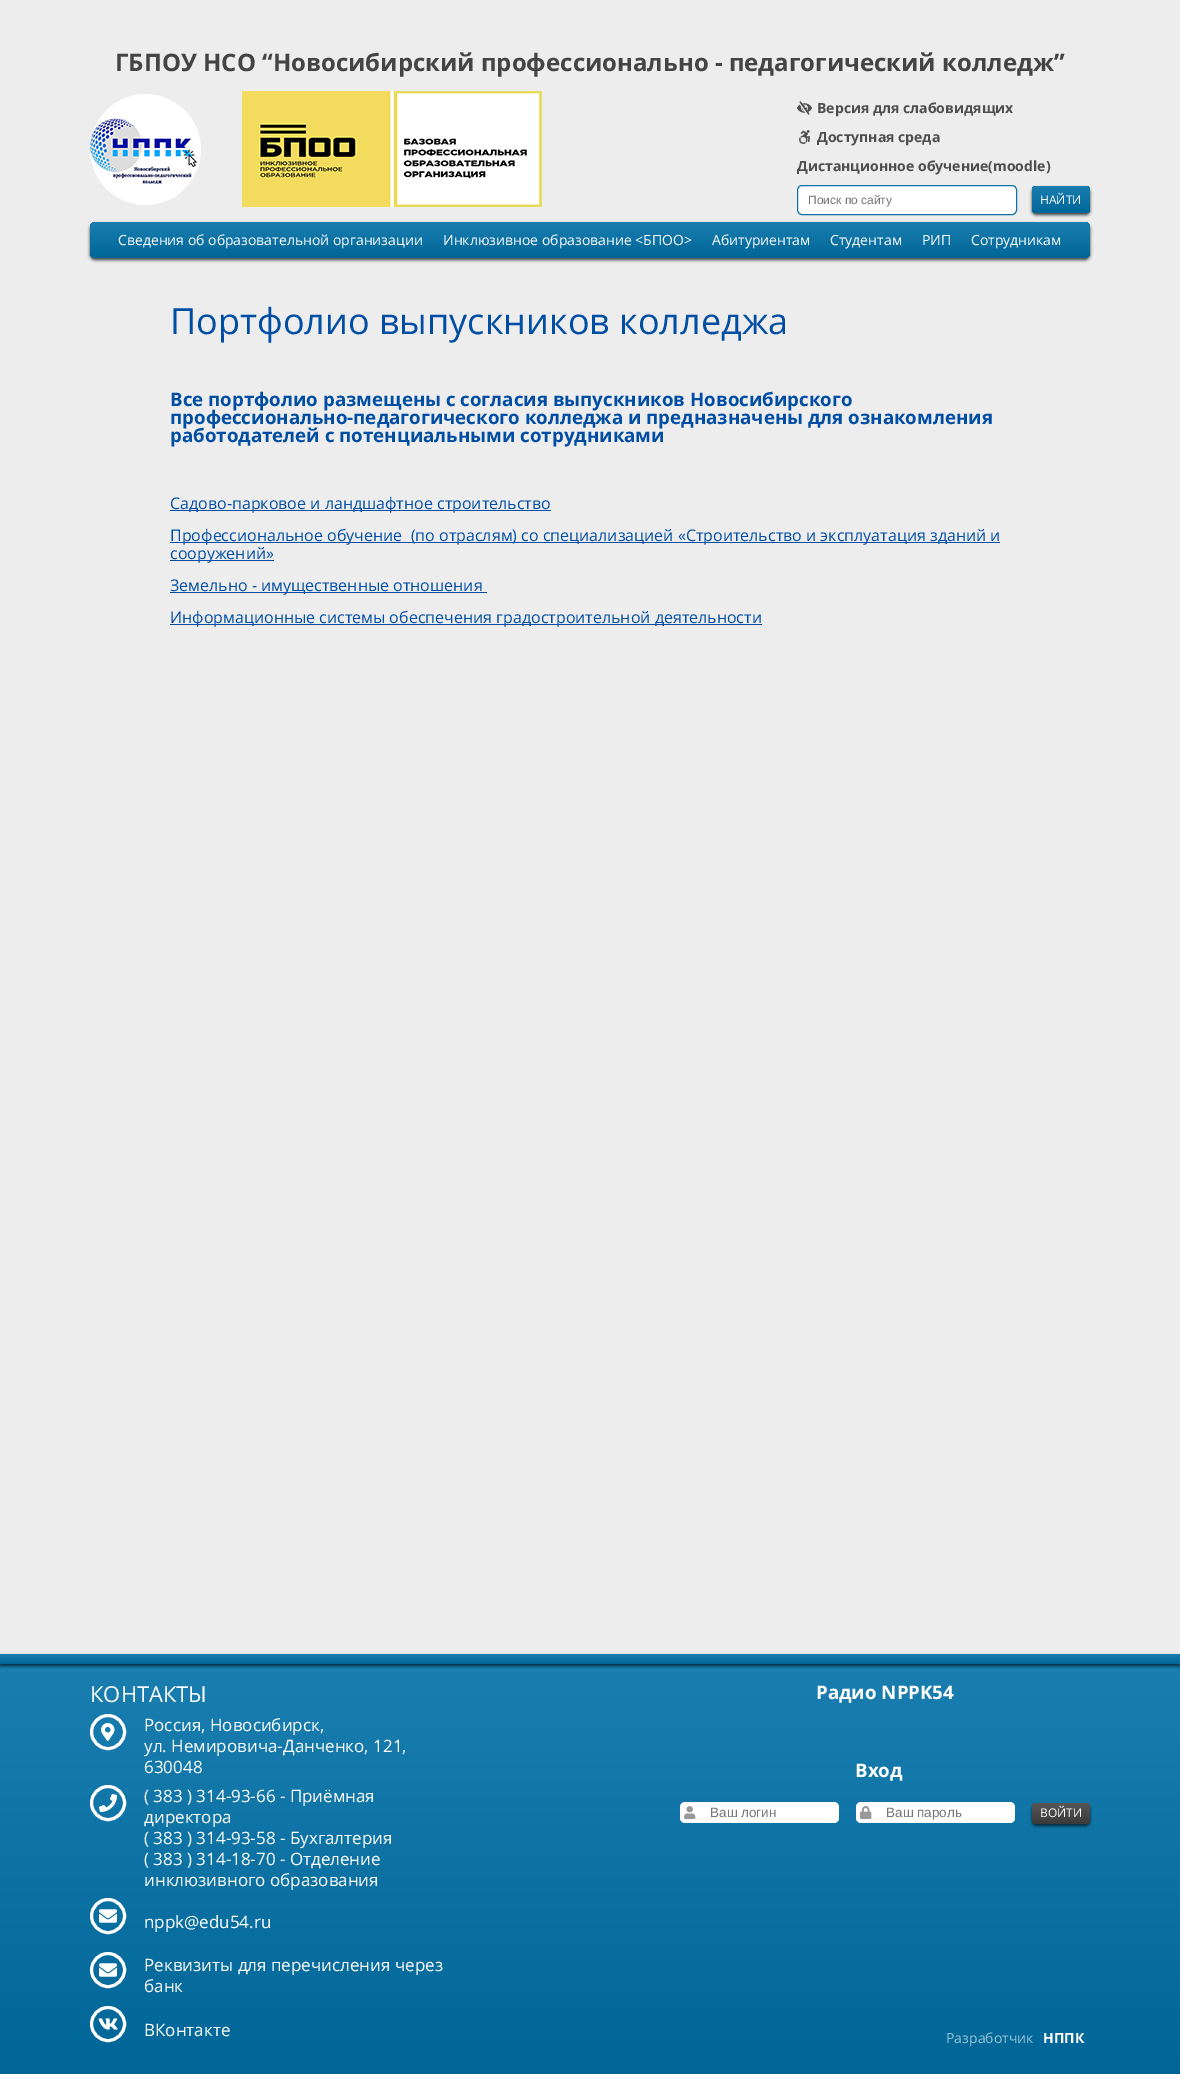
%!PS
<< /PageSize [1180 2074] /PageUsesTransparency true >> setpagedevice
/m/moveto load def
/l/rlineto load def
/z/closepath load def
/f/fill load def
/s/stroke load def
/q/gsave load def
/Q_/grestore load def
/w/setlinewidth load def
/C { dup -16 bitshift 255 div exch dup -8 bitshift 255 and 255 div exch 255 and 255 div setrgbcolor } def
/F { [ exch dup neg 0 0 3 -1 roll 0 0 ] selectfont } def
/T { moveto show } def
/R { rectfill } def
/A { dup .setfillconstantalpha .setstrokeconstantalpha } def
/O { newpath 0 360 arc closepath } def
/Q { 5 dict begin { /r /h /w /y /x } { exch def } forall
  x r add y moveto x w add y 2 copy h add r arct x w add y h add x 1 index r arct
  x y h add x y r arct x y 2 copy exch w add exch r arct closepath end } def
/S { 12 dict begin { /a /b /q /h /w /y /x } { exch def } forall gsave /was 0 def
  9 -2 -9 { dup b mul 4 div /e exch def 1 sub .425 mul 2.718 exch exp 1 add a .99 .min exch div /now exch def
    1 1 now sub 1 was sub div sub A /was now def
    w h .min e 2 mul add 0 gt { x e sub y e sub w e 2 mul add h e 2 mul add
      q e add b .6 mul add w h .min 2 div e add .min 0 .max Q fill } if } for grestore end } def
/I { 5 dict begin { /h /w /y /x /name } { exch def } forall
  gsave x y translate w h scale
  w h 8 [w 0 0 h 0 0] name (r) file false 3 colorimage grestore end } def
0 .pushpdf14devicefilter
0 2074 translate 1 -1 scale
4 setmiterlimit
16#EDEDED C
0 0 1180 2074 R
/OpenSans-Bold 24 F
16#444444 C
(ГБПОУ НСО “Новосибирский профессионально - педагогический колледж”) 115 71 T
(1.rgb) 90 94 111 111 I
(2.rgb) 242 91 300 116 I
(3.rgb) 797 101 15 14 I
/OpenSans-Bold 14 F
16#4E4E4E C
(Версия для слабовидящих) 817 113 T
(4.rgb) 799 130 11 14 I
(Доступная среда) 817 142 T
(Дистанционное обучение\(moodle\)) 797 171 T
16#FFFFFF C
797.5 185.5 219 29 4.5 Q q f Q_
16#0E73A4 C
s
/LiberationSans-Regular 12 F
16#757575 C
(Поиск по сайту) 808 204 T
16#030E14 C
1032 188 58 27 4 1.5 .75 S
q 1032 186 58 27 4 Q clip newpath
<< /ShadingType 2 /ColorSpace /DeviceRGB /Coords [1061 213 1061 186] /Extend [true true] /Function << /FunctionType 2 /Domain [0 1] /C0 [0 .4 .592] /C1 [.102 .498 .69] /N 1 >> >> shfill Q_
/OpenSans-Regular 12 F
16#FFFFFF C
(НАЙТИ) 1040 204 T
16#030E14 C
90 224 1000 36 5 1.5 .75 S
q 90 222 1000 36 5 Q clip newpath
<< /ShadingType 2 /ColorSpace /DeviceRGB /Coords [590 258 590 222] /Extend [true true] /Function << /FunctionType 2 /Domain [0 1] /C0 [0 .4 .592] /C1 [.102 .498 .69] /N 1 >> >> shfill Q_
/OpenSans-Regular 14 F
16#FFFFFF C
(Сведения об образовательной организации) 118 245 T
(Инклюзивное образование <БПОО>) 443 245 T
(Абитуриентам) 712 245 T
(Студентам) 830 245 T
(РИП) 922 245 T
(Сотрудникам) 971 245 T
/OpenSans-Regular 36 F
16#004DA4 C
(Портфолио выпускников колледжа) 170 334 T
/OpenSans-Bold 18.7 F
(Все портфолио размещены с согласия выпускников Новосибирского) 170 406 T
(профессионально-педагогического колледжа и предназначены для ознакомления) 170 424 T
(работодателей с потенциальными сотрудниками) 170 442 T
170 510 381 1 R
/OpenSans-Regular 16 F
(Садово-парковое и ландшафтное строительство) 170 509 T
170 542 830 1 R
(Профессиональное обучение  \(по отраслям\) со специализацией «Строительство и эксплуатация зданий и) 170 541 T
170 560 104 1 R
(сооружений») 170 559 T
170 592 317 1 R
(Земельно - имущественные отношения) 170 591 T
170 624 592 1 R
(Информационные системы обеспечения градостроительной деятельности) 170 623 T
q 0 1664 m 1180 0 l 0 410 l -1180 0 l z clip newpath
<< /ShadingType 2 /ColorSpace /DeviceRGB /Coords [590 2074 590 1664] /Extend [true true] /Function << /FunctionType 2 /Domain [0 1] /C0 [0 .4 .592] /C1 [.102 .498 .69] /N 1 >> >> shfill Q_
16#030E14 C
0 1656 1180 10 0 1.5 .75 S
q 0 1654 m 1180 0 l 0 10 l -1180 0 l z clip newpath
<< /ShadingType 2 /ColorSpace /DeviceRGB /Coords [590 1664 590 1654] /Extend [true true] /Function << /FunctionType 2 /Domain [0 1] /C0 [0 .4 .592] /C1 [.102 .498 .69] /N 1 >> >> shfill Q_
/OpenSans-Regular 22 F
16#FFFFFF C
(КОНТАКТЫ) 90 1702 T
3 w
108 1732 16.5 O s
(5.rgb) 101 1723 14 18 I
/OpenSans-Regular 17 F
(Россия, Новосибирск,) 144 1731 T
(ул. Немировича-Данченко, 121,) 144 1752 T
(630048) 144 1773 T
108 1803 16.5 O s
(6.rgb) 99 1794 18 18 I
(\( 383 \) 314-93-66 - Приёмная) 144 1802 T
(директора) 144 1823 T
(\( 383 \) 314-93-58 - Бухгалтерия) 144 1844 T
(\( 383 \) 314-18-70 - Отделение) 144 1865 T
(инклюзивного образования) 144 1886 T
108 1916 16.5 O s
(7.rgb) 99 1909 18 14 I
(nppk@edu54.ru) 144 1928 T
108 1970 16.5 O s
(8.rgb) 99 1963 18 14 I
(Реквизиты для перечисления через) 144 1971 T
(банк) 144 1992 T
108 2024 16.5 O s
(9.rgb) 98 2018 20 12 I
(ВКонтакте) 144 2036 T
/OpenSans-Bold 18.7 F
(Радио NPPK54) 816 1699 T
(Вход) 855 1777 T
680 1802 159 21 5 Q f
(10.rgb) 684 1806 12 13 I
/LiberationSans-Regular 13.5 F
16#757575 C
(Ваш логин) 710 1817 T
16#FFFFFF C
856 1802 159 21 5 Q f
(11.rgb) 860 1806 12 13 I
16#757575 C
(Ваш пароль) 886 1817 T
16#030E14 C
1032 1805 58 21 4 1.5 .75 S
q 1032 1803 58 21 4 Q clip newpath
<< /ShadingType 2 /ColorSpace /DeviceRGB /Coords [1061 1824 1061 1803] /Extend [true true] /Function << /FunctionType 2 /Domain [0 1] /C0 [.227 .227 .227] /C1 [.337 .337 .337] /N 1 >> >> shfill Q_
/OpenSans-Regular 12 F
16#FFFFFF C
(ВОЙТИ) 1040 1817 T
/OpenSans-Regular 14 F
16#9AC3D6 C
(Разработчик) 946 2043 T
/OpenSans-Bold 14 F
16#FFFFFF C
(НППК) 1043 2043 T
.poppdf14devicefilter showpage
